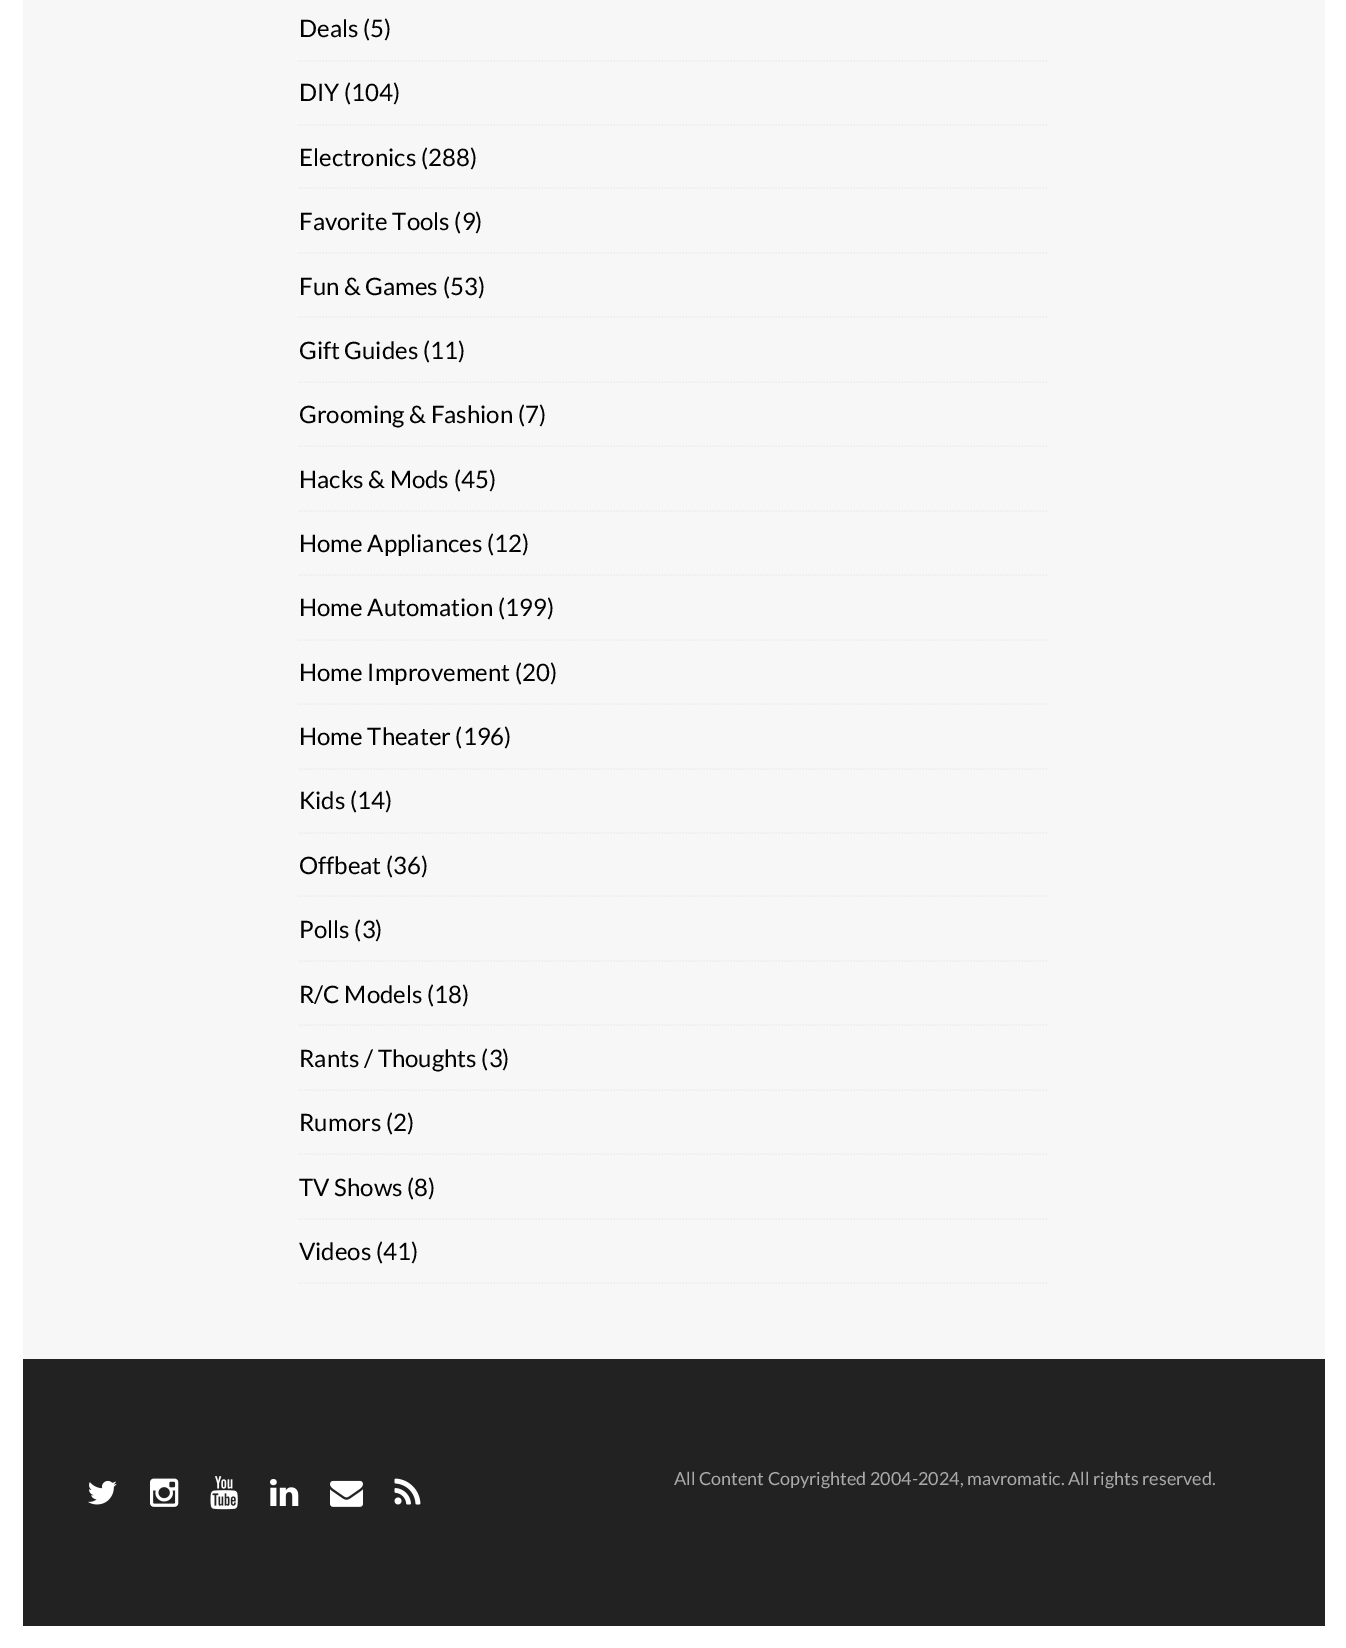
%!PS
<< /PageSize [1346 1648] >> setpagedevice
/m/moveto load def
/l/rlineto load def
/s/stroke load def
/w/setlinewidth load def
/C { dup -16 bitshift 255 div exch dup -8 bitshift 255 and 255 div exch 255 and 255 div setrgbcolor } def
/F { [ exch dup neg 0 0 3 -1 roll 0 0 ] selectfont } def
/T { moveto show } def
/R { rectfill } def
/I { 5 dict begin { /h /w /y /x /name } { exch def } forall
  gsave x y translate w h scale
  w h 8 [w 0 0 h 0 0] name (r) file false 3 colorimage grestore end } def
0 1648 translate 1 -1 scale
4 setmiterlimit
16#FFFFFF C
0 0 1346 1648 R
16#F7F7F7 C
23 0 1302 1359 R
16#EDEDED C
1.5 w
[1.5 1.5] 0 setdash
298.5 61 m 750 0 l s
/Lato-Regular 24 F
16#000000 C
(Deals \(5\)) 299 37 T
16#EDEDED C
298.5 125 m 750 0 l s
16#000000 C
(DIY \(104\)) 299 101 T
16#EDEDED C
298.5 188 m 750 0 l s
16#000000 C
(Electronics \(288\)) 299 166 T
16#EDEDED C
298.5 253 m 750 0 l s
16#000000 C
(Favorite Tools \(9\)) 299 230 T
16#EDEDED C
298.5 317 m 750 0 l s
16#000000 C
(Fun & Games \(53\)) 299 295 T
16#EDEDED C
298.5 382 m 750 0 l s
16#000000 C
(Gift Guides \(11\)) 299 359 T
16#EDEDED C
298.5 446 m 750 0 l s
16#000000 C
(Grooming & Fashion \(7\)) 299 423 T
16#EDEDED C
298.5 511 m 750 0 l s
16#000000 C
(Hacks & Mods \(45\)) 299 488 T
16#EDEDED C
298.5 575 m 750 0 l s
16#000000 C
(Home Appliances \(12\)) 299 552 T
16#EDEDED C
298.5 640 m 750 0 l s
16#000000 C
(Home Automation \(199\)) 299 616 T
16#EDEDED C
298.5 704 m 750 0 l s
16#000000 C
(Home Improvement \(20\)) 299 681 T
16#EDEDED C
298.5 769 m 750 0 l s
16#000000 C
(Home Theater \(196\)) 299 745 T
16#EDEDED C
298.5 833 m 750 0 l s
16#000000 C
(Kids \(14\)) 299 809 T
16#EDEDED C
298.5 896 m 750 0 l s
16#000000 C
(Offbeat \(36\)) 299 874 T
16#EDEDED C
298.5 961 m 750 0 l s
16#000000 C
(Polls \(3\)) 299 938 T
16#EDEDED C
298.5 1025 m 750 0 l s
16#000000 C
(R/C Models \(18\)) 299 1003 T
16#EDEDED C
298.5 1090 m 750 0 l s
16#000000 C
(Rants / Thoughts \(3\)) 299 1067 T
16#EDEDED C
298.5 1154 m 750 0 l s
16#000000 C
(Rumors \(2\)) 299 1131 T
16#EDEDED C
298.5 1219 m 750 0 l s
16#000000 C
(TV Shows \(8\)) 299 1196 T
16#EDEDED C
298.5 1283 m 750 0 l s
16#000000 C
(Videos \(41\)) 299 1260 T
16#222222 C
23 1359 1302 267 R
(1.rgb) 88 1480 29 25 I
(2.rgb) 150 1478 29 29 I
(3.rgb) 210 1476 28 34 I
(4.rgb) 270 1479 29 27 I
(5.rgb) 330 1480 33 27 I
(6.rgb) 394 1478 27 27 I
/Lato-Regular 18 F
16#AAAAAA C
(All Content Copyrighted 2004-2024, mavromatic. All rights reserved.) 674 1485 T
showpage
